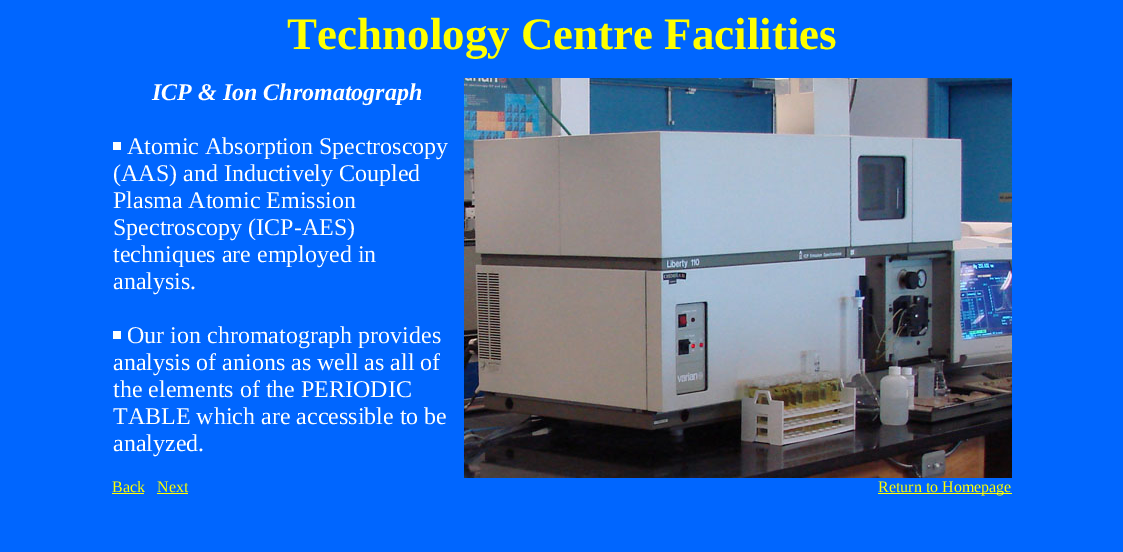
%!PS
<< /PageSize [1123 552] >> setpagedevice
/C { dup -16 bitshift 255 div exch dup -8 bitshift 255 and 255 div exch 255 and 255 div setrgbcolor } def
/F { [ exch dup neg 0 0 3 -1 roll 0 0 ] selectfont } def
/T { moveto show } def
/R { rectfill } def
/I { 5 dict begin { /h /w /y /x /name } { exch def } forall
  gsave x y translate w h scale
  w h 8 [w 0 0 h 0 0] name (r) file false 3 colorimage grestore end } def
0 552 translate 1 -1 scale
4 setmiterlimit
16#0066FF C
0 0 1123 552 R
/LiberationSerif-Bold 45 F
16#FFFF00 C
(Technology Centre Facilities) 287 49 T
/LiberationSerif-BoldItalic 24 F
16#FFFFFF C
(ICP & Ion Chromatograph) 152 100 T
113 142 8 8 R
/LiberationSerif-Regular 24 F
(Atomic Absorption Spectroscopy) 127 154 T
(\(AAS\) and Inductively Coupled) 113 181 T
(Plasma Atomic Emission) 113 208 T
(Spectroscopy \(ICP-AES\)) 113 235 T
(techniques are employed in) 113 262 T
(analysis.) 113 289 T
113 331 8 8 R
(Our ion chromatograph provides) 127 343 T
(analysis of anions as well as all of) 113 370 T
(the elements of the PERIODIC) 113 397 T
(TABLE which are accessible to be) 113 424 T
(analyzed.) 113 451 T
(1.rgb) 464 78 548 400 I
/LiberationSerif-Regular 16 F
16#FFFF00 C
(Back) 112 492 T
112 493 32 1 R
(Next) 157 492 T
157 493 31 1 R
878 493 134 1 R
(Return to Homepage) 878 492 T
showpage
